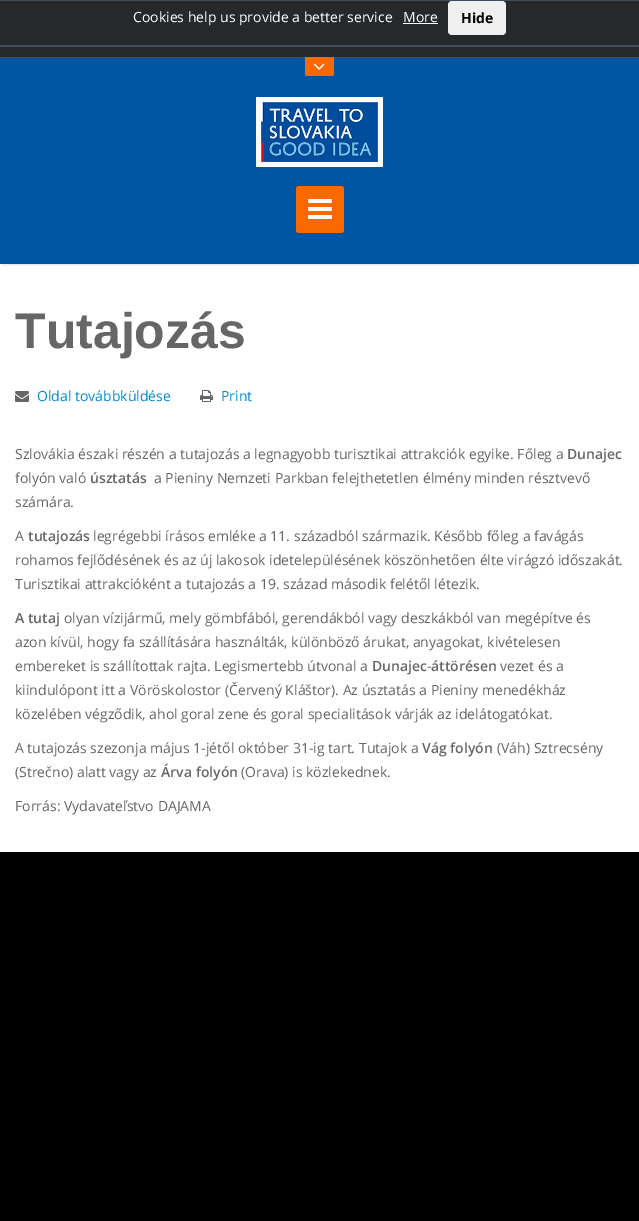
%!PS
<< /PageSize [639 1221] /PageUsesTransparency true >> setpagedevice
/m/moveto load def
/l/rlineto load def
/c/rcurveto load def
/z/closepath load def
/f/fill load def
/C { dup -16 bitshift 255 div exch dup -8 bitshift 255 and 255 div exch 255 and 255 div setrgbcolor } def
/F { [ exch dup neg 0 0 3 -1 roll 0 0 ] selectfont } def
/T { moveto show } def
/R { rectfill } def
/A { dup .setfillconstantalpha .setstrokeconstantalpha } def
/Q { 5 dict begin { /r /h /w /y /x } { exch def } forall
  x r add y moveto x w add y 2 copy h add r arct x w add y h add x 1 index r arct
  x y h add x y r arct x y 2 copy exch w add exch r arct closepath end } def
/S { 12 dict begin { /a /b /q /h /w /y /x } { exch def } forall gsave /was 0 def
  9 -2 -9 { dup b mul 4 div /e exch def 1 sub .425 mul 2.718 exch exp 1 add a .99 .min exch div /now exch def
    1 1 now sub 1 was sub div sub A /was now def
    w h .min e 2 mul add 0 gt { x e sub y e sub w e 2 mul add h e 2 mul add
      q e add b .6 mul add w h .min 2 div e add .min 0 .max Q fill } if } for grestore end } def
/I { 5 dict begin { /h /w /y /x /name } { exch def } forall
  gsave x y translate w h scale
  w h 8 [w 0 0 h 0 0] name (r) file false 3 colorimage grestore end } def
0 .pushpdf14devicefilter
0 1221 translate 1 -1 scale
4 setmiterlimit
16#25292C C
0 0 639 1221 R
16#414F5A C
0 0 639 1 R
0 45 639 2 R
/OpenSans-Regular 14 F
16#FFFFFF C
(Cookies help us provide a better service) 133 22 T
(More) 403 22 T
403 23 35 1 R
16#EFEFEF C
448 1 58 34 4 Q f
/OpenSans-Bold 14 F
16#000000 C
(Hide) 461 23 T
16#414F5A C
0 57 639 1 R
16#FFFFFF C
0 264 639 588 R
16#000000 C
3 64 633 200 0 1.5 .2 S
16#0056A3 C
0 58 639 206 R
16#FA6900 C
305 57 m 29 0 l 0 17 l 0 1 -1 2 -2 2 c -25 0 l -1 0 -2 -1 -2 -2 c z f
(1.rgb) 313 63 12 7 I
(2.rgb) 256 97 127 70 I
296 186 48 47 3 Q f
(3.rgb) 308 199 24 20 I
/LiberationSans-Bold 50 F
16#666666 C
(Tutajozás) 15 348 T
(4.rgb) 15 391 14 11 I
/OpenSans-Regular 14 F
16#0488CD C
(Oldal továbbküldése) 37 401 T
(5.rgb) 200 390 13 12 I
(Print) 221 401 T
16#666666 C
(Szlovákia északi részén a tutajozás a legnagyobb turisztikai attrakciók egyike. Főleg a) 15 459 T
/OpenSans-SemiBold 14 F
(Dunajec) 567 459 T
/OpenSans-Regular 14 F
(folyón való) 15 483 T
/OpenSans-SemiBold 14 F
(úsztatás) 90 483 T
/OpenSans-Regular 14 F
(a Pieniny Nemzeti Parkban felejthetetlen élmény minden résztvevő) 154 483 T
(számára.) 15 507 T
(A) 15 541 T
/OpenSans-SemiBold 14 F
(tutajozás) 28 541 T
/OpenSans-Regular 14 F
(legrégebbi írásos emléke a 11. századból származik. Később főleg a favágás) 93 541 T
(rohamos fejlődésének és az új lakosok idetelepülésének köszönhetően élte virágzó időszakát.) 15 565 T
(Turisztikai attrakcióként a tutajozás a 19. század második felétől létezik.) 15 589 T
/OpenSans-SemiBold 14 F
(A tutaj) 15 623 T
/OpenSans-Regular 14 F
(olyan vízijármű, mely gömbfából, gerendákból vagy deszkákból van megépítve és) 64 623 T
(azon kívül, hogy fa szállítására használták, különböző árukat, anyagokat, kivételesen) 15 647 T
(embereket is szállítottak rajta. Legismertebb útvonal a) 15 671 T
/OpenSans-SemiBold 14 F
(Dunajec) 372 671 T
/OpenSans-Regular 14 F
(-) 427 671 T
/OpenSans-SemiBold 14 F
(áttörésen) 431 671 T
/OpenSans-Regular 14 F
(vezet és a) 500 671 T
(kiindulópont itt a Vöröskolostor \(Červený Kláštor\). Az úsztatás a Pieniny menedékház) 15 695 T
(közelében végződik, ahol goral zene és goral specialitások várják az idelátogatókat.) 15 719 T
(A tutajozás szezonja május 1-jétől október 31-ig tart. Tutajok a) 15 753 T
/OpenSans-SemiBold 14 F
(Vág folyón) 422 753 T
/OpenSans-Regular 14 F
(\(Váh\) Sztrecsény) 497 753 T
(\(Strečno\) alatt vagy az) 15 777 T
/OpenSans-SemiBold 14 F
(Árva folyón) 161 777 T
/OpenSans-Regular 14 F
(\(Orava\) is közlekednek.) 241 777 T
(Forrás: Vydavateľstvo DAJAMA) 15 811 T
16#000000 C
0 852 639 369 R
.poppdf14devicefilter showpage
